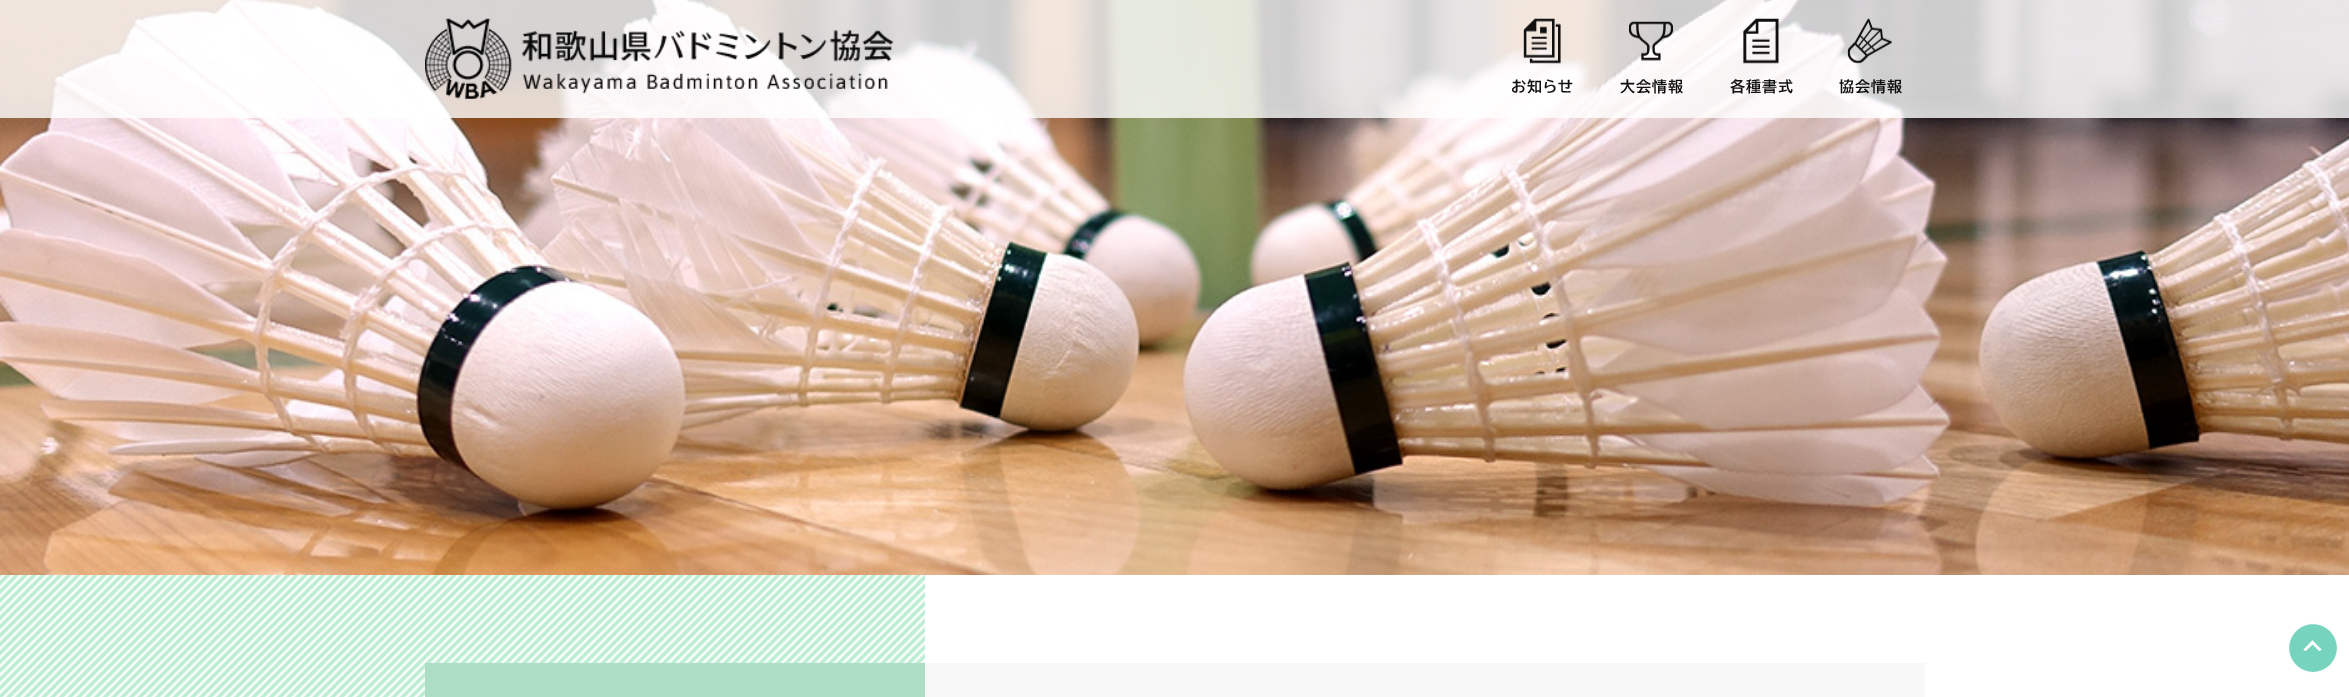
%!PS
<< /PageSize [2349 697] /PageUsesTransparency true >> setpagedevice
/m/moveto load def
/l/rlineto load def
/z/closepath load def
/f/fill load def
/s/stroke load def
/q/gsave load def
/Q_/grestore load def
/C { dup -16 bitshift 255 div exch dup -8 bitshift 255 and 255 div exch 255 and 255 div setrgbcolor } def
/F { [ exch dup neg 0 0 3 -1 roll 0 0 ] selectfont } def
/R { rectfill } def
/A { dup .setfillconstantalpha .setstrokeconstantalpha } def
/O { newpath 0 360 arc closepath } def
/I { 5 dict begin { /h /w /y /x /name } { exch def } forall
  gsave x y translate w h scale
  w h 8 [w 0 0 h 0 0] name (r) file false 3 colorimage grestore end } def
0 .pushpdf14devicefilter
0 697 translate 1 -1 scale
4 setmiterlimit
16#FFFFFF C
0 0 2349 697 R
(1.rgb) 0 0 2349 575 I
0.8 A
0 0 2349 118 R
1 A
(2.rgb) 425 18 469 81 I
(3.rgb) 1523 18 38 46 I
/BIZUDPGothic-Bold 15 F
16#101010 C
1511 92 m 1 0 (お知らせ) ashow
(4.rgb) 1629 21 44 40 I
1620 92 m 1 0 (大会情報) ashow
(5.rgb) 1743 18 36 46 I
1730 92 m 1 0 (各種書式) ashow
(6.rgb) 1847 18 45 46 I
1839 92 m 1 0 (協会情報) ashow
(7.rgb) 0 575 925 122 I
16#ADDDC3 C
425 663 500 34 R
16#F8F8F8 C
925 663 1000 34 R
16#76D3BE C
2313 648 24.5 O q f Q_
16#FFFFFF C
s
2303.5 649.5 m 9 -9 l 2 2 l -9 8.5 l z f
2310.5 642.5 m 2 -2 l 9 9 l -2 1.5 l z f
.poppdf14devicefilter showpage
